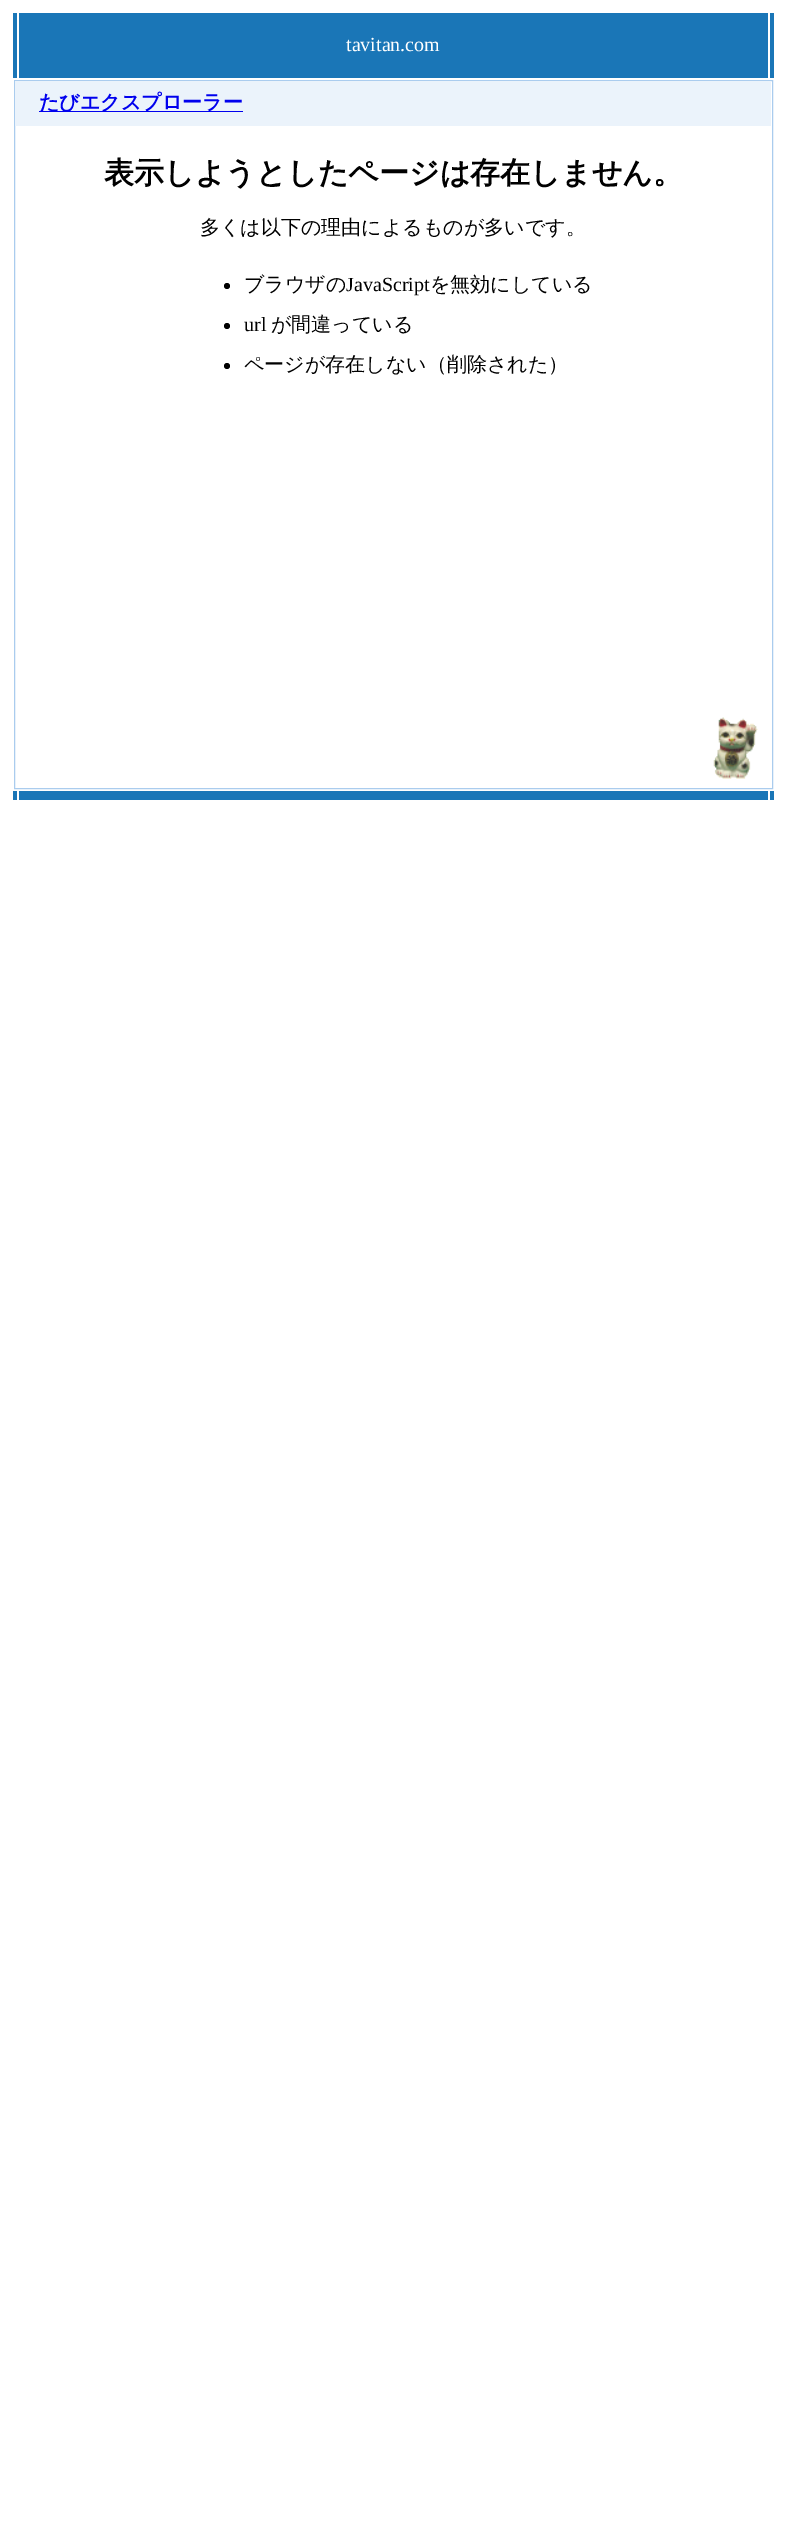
%!PS
<< /PageSize [786 2537] >> setpagedevice
/f/fill load def
/C { dup -16 bitshift 255 div exch dup -8 bitshift 255 and 255 div exch 255 and 255 div setrgbcolor } def
/F { [ exch dup neg 0 0 3 -1 roll 0 0 ] selectfont } def
/T { moveto show } def
/R { rectfill } def
/O { newpath 0 360 arc closepath } def
/I { 5 dict begin { /h /w /y /x /name } { exch def } forall
  gsave x y translate w h scale
  w h 8 [w 0 0 h 0 0] name (r) file false 3 colorimage grestore end } def
0 2537 translate 1 -1 scale
4 setmiterlimit
16#FFFFFF C
0 0 786 2537 R
16#1A76B7 C
13 13 4 65 R
19 13 749 65 R
/LiberationSerif-Regular 20 F
16#FFFFFF C
(tavitan.com) 346 51 T
16#1A76B7 C
770 13 4 65 R
16#AACCEE C
14.5 80.5 758 708 rectstroke
16#EBF3FB C
15 81 756 45 R
16#0000EE C
39 111 204 1 R
/WenQuanYiZenHei-Bold 20 F
(たびエクスプローラー) 39 109 T
/WenQuanYiZenHei-Bold 30 F
16#000000 C
(表示しようとしたページは存在しません。) 104 183 T
/WenQuanYiZenHei-Medium 20 F
(多くは以下の理由によるものが多いです。) 200 234 T
227 286 3 O f
(ブラウザの) 244 291 T
/LiberationSerif-Regular 20 F
(JavaScript) 346 291 T
/WenQuanYiZenHei-Medium 20 F
(を無効にしている) 430 291 T
227 326 3 O f
/LiberationSerif-Regular 20 F
(url) 244 331 T
/WenQuanYiZenHei-Medium 20 F
(が間違っている) 271 331 T
227 366 3 O f
(ページが存在しない（削除された）) 244 371 T
(1.rgb) 713 717 45 62 I
16#1A76B7 C
13 791 4 9 R
19 791 749 9 R
770 791 4 9 R
showpage
